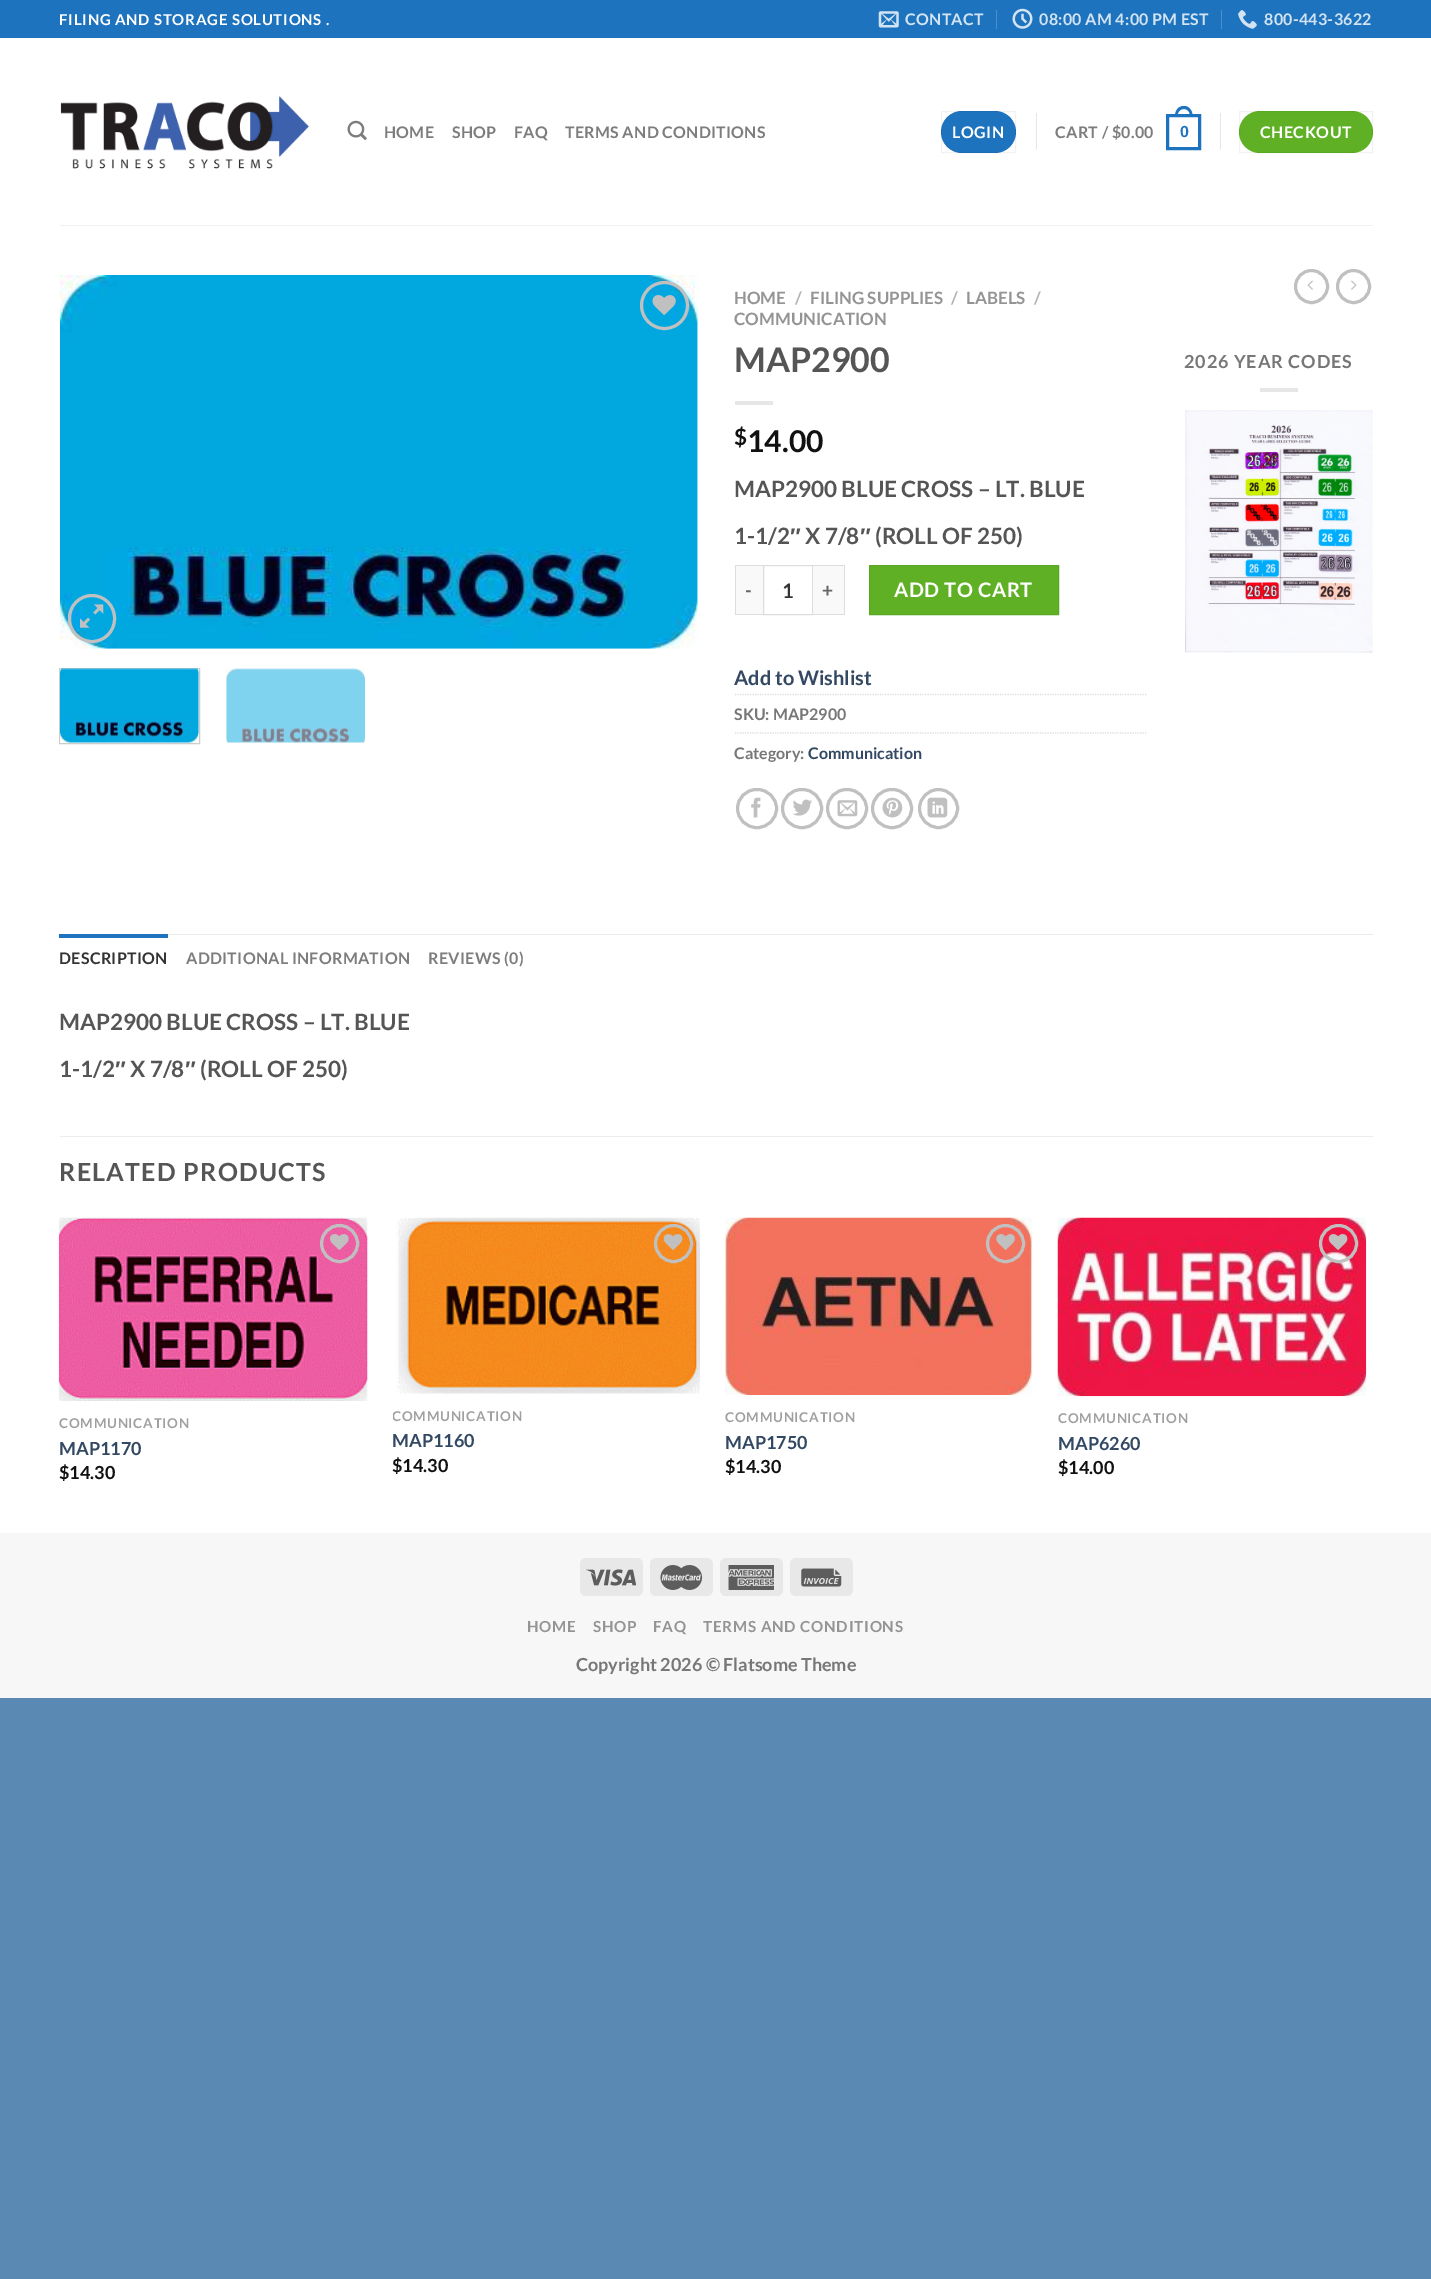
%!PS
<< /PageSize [1431 2279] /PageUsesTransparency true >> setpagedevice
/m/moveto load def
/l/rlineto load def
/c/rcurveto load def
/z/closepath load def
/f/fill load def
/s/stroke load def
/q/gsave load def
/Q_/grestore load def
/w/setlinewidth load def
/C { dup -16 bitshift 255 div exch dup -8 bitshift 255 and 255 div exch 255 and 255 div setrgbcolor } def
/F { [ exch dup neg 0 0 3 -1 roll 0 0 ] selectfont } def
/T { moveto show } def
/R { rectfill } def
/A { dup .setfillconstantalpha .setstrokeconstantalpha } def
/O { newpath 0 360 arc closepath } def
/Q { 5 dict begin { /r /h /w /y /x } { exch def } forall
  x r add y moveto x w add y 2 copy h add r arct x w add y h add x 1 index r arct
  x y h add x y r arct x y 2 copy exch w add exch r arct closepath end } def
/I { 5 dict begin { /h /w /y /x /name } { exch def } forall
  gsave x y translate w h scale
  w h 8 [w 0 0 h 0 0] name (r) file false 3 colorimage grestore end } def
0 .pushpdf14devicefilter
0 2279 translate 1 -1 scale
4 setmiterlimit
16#5A8AB3 C
0 0 1431 2279 R
16#FFFFFF C
0 38 1431 1495 R
16#1E73BE C
0 0 1431 38 R
/Lato-Bold 15 F
16#FFFFFF C
59 25 m .75 0 (FILING AND STORAGE SOLUTIONS .) ashow
(1.rgb) 878 11 21 17 I
/Lato-Bold 16 F
16#D2E3F2 C
905 25 m .3 0 (CONTACT) ashow
16#4B8FCB C
996 10 1 19 R
(2.rgb) 1012 8 21 21 I
16#D2E3F2 C
1039 25 m .3 0 (08:00 AM 4:00 PM EST) ashow
16#4B8FCB C
1221 10 1 19 R
(3.rgb) 1238 10 19 19 I
16#D2E3F2 C
1264 25 m .3 0 (800-443-3622) ashow
(4.rgb) 60 96 249 73 I
(5.rgb) 347 120 20 20 I
16#7D7D7D C
384 138 m .3 0 (HOME) ashow
452 138 m .3 0 (SHOP) ashow
514 138 m .3 0 (FAQ) ashow
565 138 m .3 0 (TERMS AND CONDITIONS) ashow
16#1E73BE C
941 111 75 42 21 Q f
0.05 A
16#000000 C
941.5 111.5 74 41 rectstroke
1 A
16#FFFFFF C
952 138 m .5 0 (LOGIN) ashow
16#E6E6E6 C
1036 113 1 37 R
16#7D7D7D C
1055 138 m .3 0 (CART / $0.00) ashow
16#1E73BE C
3 w
1167.5 115.5 32 33 rectstroke
1184 106 m 5.5 0 8.5 5 8.5 10 c -17.5 0 l 0 -5 3 -10 9 -10 c z 1184 109 m 4 0 6 3.5 6 7 c -12.5 0 l 0 -3.5 2 -7 6.5 -7 c z eofill
/LiberationSans-Bold 16 F
1180 137 m .3 0 (0) ashow
16#E6E6E6 C
1220 113 1 37 R
16#5FB025 C
1239 111 134 42 21 Q f
0.05 A
16#000000 C
1 w
1239.5 111.5 133 41 rectstroke
/Lato-Bold 16 F
1 A
16#FFFFFF C
1260 138 m .5 0 (CHECKOUT) ashow
16#F1F1F1 C
60 225 1313 1 R
(6.rgb) 60 275 638 374 I
(7.rgb) 697 275 1 364 I
16#C0C0C0 C
3 w
664.5 305.5 23 O s
(8.rgb) 652 295 24 20 I
69.5 595.5 45 46 22.5 Q s
(9.rgb) 80 604 24 24 I
16#CCCCCC C
1 w
59.5 668.5 140 75 rectstroke
(10.rgb) 60 668 139 75 I
(11.rgb) 226 668 139 75 I
/Lato-Bold 17 F
16#949494 C
(HOME) 734 304 T
16#B2B2B2 C
(/) 795 304 T
16#949494 C
(FILING SUPPLIES) 810 304 T
16#B2B2B2 C
(/) 951 304 T
16#949494 C
(LABELS) 966 304 T
16#B2B2B2 C
(/) 1034 304 T
16#949494 C
(COMMUNICATION) 734 325 T
/Lato-Bold 34 F
16#555555 C
(MAP2900) 734 372 T
16#E6E6E6 C
735 401 38 4 R
/Lato-Bold 22.5 F
16#111111 C
($) 734 445 T
/Lato-Bold 30 F
(14.00) 747 452 T
/Lato-Bold 22.5 F
16#555555 C
(MAP2900 BLUE CROSS – LT. BLUE) 734 497 T
(1-1/2) 734 544 T
/LiberationSans-Bold 22.5 F
(″) 790 544 T
/Lato-Bold 22.5 F
(X 7/8) 805 544 T
/LiberationSans-Bold 22.5 F
(″) 860 544 T
/Lato-Bold 22.5 F
(\(ROLL OF 250\)) 875 544 T
16#F9F9F9 C
736 566 27 48 R
16#DDDDDD C
735 565 28 1 R
735 614 28 1 R
735 565 1 50 R
/Lato-Bold 19 F
16#666666 C
745 597 m 1 0 (-) ashow
16#DDDDDD C
763.5 565.5 49 49 rectstroke
/Lato-Bold 20 F
16#333333 C
(1) 782 598 T
16#F9F9F9 C
813 566 31 48 R
16#DDDDDD C
813 565 32 1 R
844 565 1 50 R
813 614 32 1 R
/Lato-Bold 19 F
16#666666 C
822 597 m 1 0 (+) ashow
16#5FB025 C
869.5 565.5 m 189 0 l 0 49 l -189 0 l z q f Q_
16#5AA723 C
s
/Lato-Bold 20 F
16#FFFFFF C
894 597 m .6 0 (ADD TO CART) ashow
16#334862 C
(Add to Wishlist) 734 685 T
16#DDDDDD C
1.2 w
[1.25 1.25] 0 setdash
735 694.5 m 412.5 0 l s
/Lato-Bold 16 F
16#777777 C
(SKU: MAP2900) 734 720 T
16#DDDDDD C
735 733 m 412.5 0 l s
16#777777 C
(Category:) 734 759 T
16#334862 C
(Communication) 808 759 T
16#C0C0C0 C
3 w
[] 0 setdash
737.5 789.5 39 38 19 Q s
(12.rgb) 751 797 10 21 I
782.5 789.5 39 38 19 Q s
(13.rgb) 793 799 19 17 I
827.5 789.5 39 38 19 Q s
(14.rgb) 837 800 21 17 I
872.5 789.5 39 38 19 Q s
(15.rgb) 882 797 21 21 I
938.5 808.5 19 O s
(16.rgb) 927 797 21 21 I
1311.5 286.5 16 O s
(17.rgb) 1307 280 6 10 I
1353.5 286.5 16 O s
(18.rgb) 1351 280 6 10 I
/Lato-Bold 18 F
16#777777 C
1184 368 m .9 0 (2026 YEAR CODES) ashow
16#E6E6E6 C
1260 388 38 4 R
(19.rgb) 1185 410 188 243 I
16#ECECEC C
168 934 1205 1 R
16#1E73BE C
59 934 109 4 R
/Lato-Bold 16 F
16#333333 C
59 964 m .3 0 (DESCRIPTION) ashow
16#7D7D7D C
186 964 m .3 0 (ADDITIONAL INFORMATION) ashow
428 964 m .3 0 (REVIEWS \(0\)) ashow
/Lato-Bold 22.5 F
16#555555 C
(MAP2900 BLUE CROSS – LT. BLUE) 59 1030 T
(1-1/2) 59 1077 T
/LiberationSans-Bold 22.5 F
(″) 115 1077 T
/Lato-Bold 22.5 F
(X 7/8) 130 1077 T
/LiberationSans-Bold 22.5 F
(″) 185 1077 T
/Lato-Bold 22.5 F
(\(ROLL OF 250\)) 200 1077 T
16#ECECEC C
60 1136 1313 1 R
/Lato-Bold 25 F
16#555555 C
59 1181 m 1.25 0 (RELATED PRODUCTS) ashow
(20.rgb) 58 1217 310 184 I
16#C0C0C0 C
339.5 1243.5 18 O s
(21.rgb) 330 1234 19 16 I
/Lato-Bold 13.5 F
16#A0A0A0 C
59 1428 m .75 0 (COMMUNICATION) ashow
/Lato-Bold 18 F
16#334862 C
(MAP1170) 59 1455 T
16#111111 C
($14.30) 59 1479 T
(22.rgb) 396 1217 304 177 I
16#C0C0C0 C
673.5 1243.5 18 O s
(23.rgb) 663 1234 20 16 I
q
393 1409 307 16 rectclip
/Lato-Bold 13.5 F
16#A0A0A0 C
392 1421 m .75 0 (COMMUNICATION) ashow
Q_
16#334862 C
(MAP1160) 392 1447 T
16#111111 C
($14.30) 392 1472 T
(24.rgb) 725 1217 308 178 I
16#C0C0C0 C
1005.5 1243.5 18 O s
(25.rgb) 996 1234 19 16 I
/Lato-Bold 13.5 F
16#A0A0A0 C
725 1422 m .75 0 (COMMUNICATION) ashow
/Lato-Bold 18 F
16#334862 C
(MAP1750) 725 1449 T
16#111111 C
($14.30) 725 1473 T
(26.rgb) 1057 1217 310 180 I
16#C0C0C0 C
1338.5 1243.5 18 O s
(27.rgb) 1328 1234 20 16 I
/Lato-Bold 13.5 F
16#A0A0A0 C
1058 1423 m .75 0 (COMMUNICATION) ashow
/Lato-Bold 18 F
16#334862 C
(MAP6260) 1058 1450 T
16#111111 C
($14.00) 1058 1474 T
16#F7F7F7 C
0 1533 1431 165 R
16#E8E8E8 C
580 1558 63 38 6 Q f
(28.rgb) 586 1569 50 17 I
650 1558 63 38 6 Q f
(29.rgb) 660 1565 43 25 I
720 1558 63 38 6 Q f
(30.rgb) 728 1565 46 25 I
790 1558 63 38 6 Q f
(31.rgb) 801 1568 41 19 I
/Lato-Bold 15.25 F
16#949494 C
527 1632 m .75 0 (HOME) ashow
593 1632 m .75 0 (SHOP) ashow
653 1632 m .75 0 (FAQ) ashow
703 1632 m .75 0 (TERMS AND CONDITIONS) ashow
/Lato-Bold 18 F
16#777777 C
(Copyright 2026 © Flatsome Theme) 576 1671 T
.poppdf14devicefilter showpage
